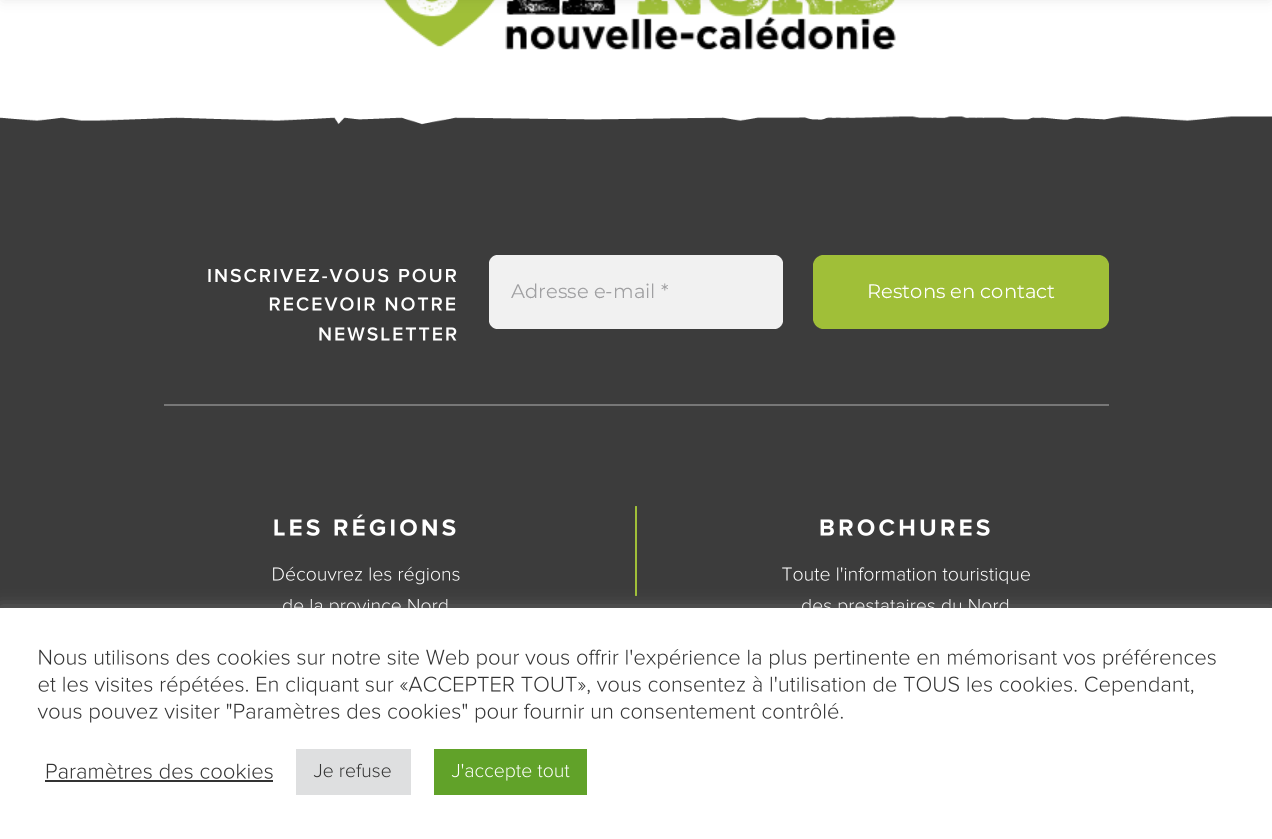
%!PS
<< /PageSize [1272 839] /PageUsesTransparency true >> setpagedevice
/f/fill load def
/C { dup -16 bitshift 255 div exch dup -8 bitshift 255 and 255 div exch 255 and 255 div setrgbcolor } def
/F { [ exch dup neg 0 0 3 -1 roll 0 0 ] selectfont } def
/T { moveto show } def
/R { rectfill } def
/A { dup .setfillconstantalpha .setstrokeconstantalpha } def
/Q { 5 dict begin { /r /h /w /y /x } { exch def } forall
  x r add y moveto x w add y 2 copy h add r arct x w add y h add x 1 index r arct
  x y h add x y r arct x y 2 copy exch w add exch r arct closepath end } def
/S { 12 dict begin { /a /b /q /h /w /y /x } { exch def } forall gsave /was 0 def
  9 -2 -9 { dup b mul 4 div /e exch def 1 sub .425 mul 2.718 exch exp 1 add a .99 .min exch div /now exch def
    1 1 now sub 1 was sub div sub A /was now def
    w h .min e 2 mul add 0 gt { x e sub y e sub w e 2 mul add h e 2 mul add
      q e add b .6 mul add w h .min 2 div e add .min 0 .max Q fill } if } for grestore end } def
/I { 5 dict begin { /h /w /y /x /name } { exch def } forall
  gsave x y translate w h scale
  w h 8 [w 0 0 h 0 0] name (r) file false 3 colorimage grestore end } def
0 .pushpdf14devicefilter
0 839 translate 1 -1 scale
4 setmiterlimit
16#FFFFFF C
0 0 1272 839 R
(1.rgb) 383 0 513 50 I
16#000000 C
3 -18 1266 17 0 6 .1 S
16#3C3C3C C
0 126 1272 482 R
(2.rgb) 0 116 1272 10 I
16#777777 C
164 404 945 2 R
(3.rgb) 208 268 248 15 I
(4.rgb) 269 297 187 14 I
(5.rgb) 319 327 138 14 I
16#F1F1F1 C
489 255 294 74 9 Q f
/Montserrat-Regular 19.5 F
16#A0A0A2 C
(Adresse e-mail *) 511 298 T
16#A0BF38 C
813 255 296 74 11 Q f
16#FFFFFF C
(Restons en contact) 867 298 T
(6.rgb) 274 514 182 22 I
16#A0BF38 C
635 506 2 90 1 Q f
(7.rgb) 273 566 187 19 I
(8.rgb) 283 599 165 9 I
(9.rgb) 820 519 170 17 I
(10.rgb) 782 567 248 18 I
(11.rgb) 802 599 207 9 I
16#ACABAB C
0 606 1272 233 0 7.5 .3 S
16#FFFFFF C
0 608 1272 231 R
(12.rgb) 39 649 1177 20 I
(13.rgb) 38 676 1156 20 I
(14.rgb) 37 703 806 20 I
(15.rgb) 46 763 227 16 I
16#333333 C
45 780 228 2 R
16#DEDFE0 C
296 749 115 46 R
(16.rgb) 313 763 78 15 I
16#61A229 C
434 749 153 46 R
(17.rgb) 451 763 119 18 I
.poppdf14devicefilter showpage
